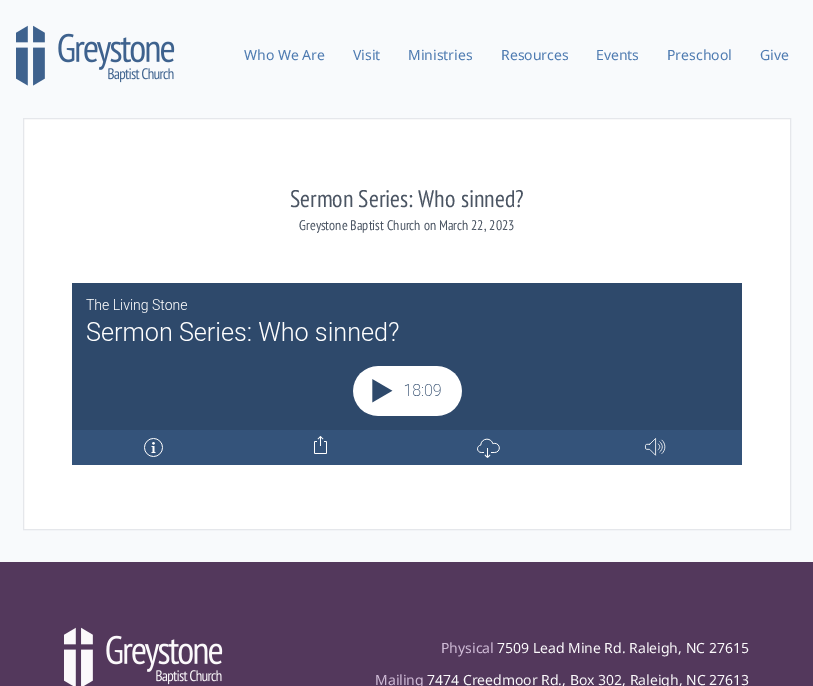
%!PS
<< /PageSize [813 686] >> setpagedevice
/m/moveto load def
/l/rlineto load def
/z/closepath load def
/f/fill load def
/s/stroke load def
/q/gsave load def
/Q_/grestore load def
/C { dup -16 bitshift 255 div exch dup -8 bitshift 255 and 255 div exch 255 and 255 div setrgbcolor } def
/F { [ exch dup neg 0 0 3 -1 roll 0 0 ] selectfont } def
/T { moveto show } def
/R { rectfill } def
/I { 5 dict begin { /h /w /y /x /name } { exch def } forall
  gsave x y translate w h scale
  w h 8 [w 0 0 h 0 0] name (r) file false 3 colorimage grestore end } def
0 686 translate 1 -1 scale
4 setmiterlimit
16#F8FAFC C
0 0 813 686 R
(1.rgb) 16 25 159 61 I
/NotoSans-Regular 14 F
16#4D7AB1 C
(Who We Are) 244 60 T
(Visit) 353 60 T
(Ministries) 408 60 T
(Resources) 501 60 T
(Events) 596 60 T
(Preschool) 667 60 T
(Give) 760 60 T
16#FFFFFF C
23.5 118.5 m 767 0 l 0 411 l -767 0 l z q f Q_
16#E5E7EB C
s
/PTSansNarrow-Regular 24 F
16#4B5563 C
(Sermon Series: Who sinned?) 290 207 T
/PTSansNarrow-Regular 14 F
(Greystone Baptist Church on March 22, 2023) 299 230 T
(2.rgb) 72 283 670 182 I
16#53385C C
0 562 813 124 R
(3.rgb) 64 627 159 59 I
/NotoSans-Regular 14 F
16#D0BCD7 C
(Physical) 441 653 T
16#FBF9FB C
(7509 Lead Mine Rd. Raleigh, NC 27615) 497 653 T
16#D0BCD7 C
(Mailing) 375 685 T
16#FBF9FB C
(7474 Creedmoor Rd., Box 302, Raleigh, NC 27613) 427 685 T
showpage
